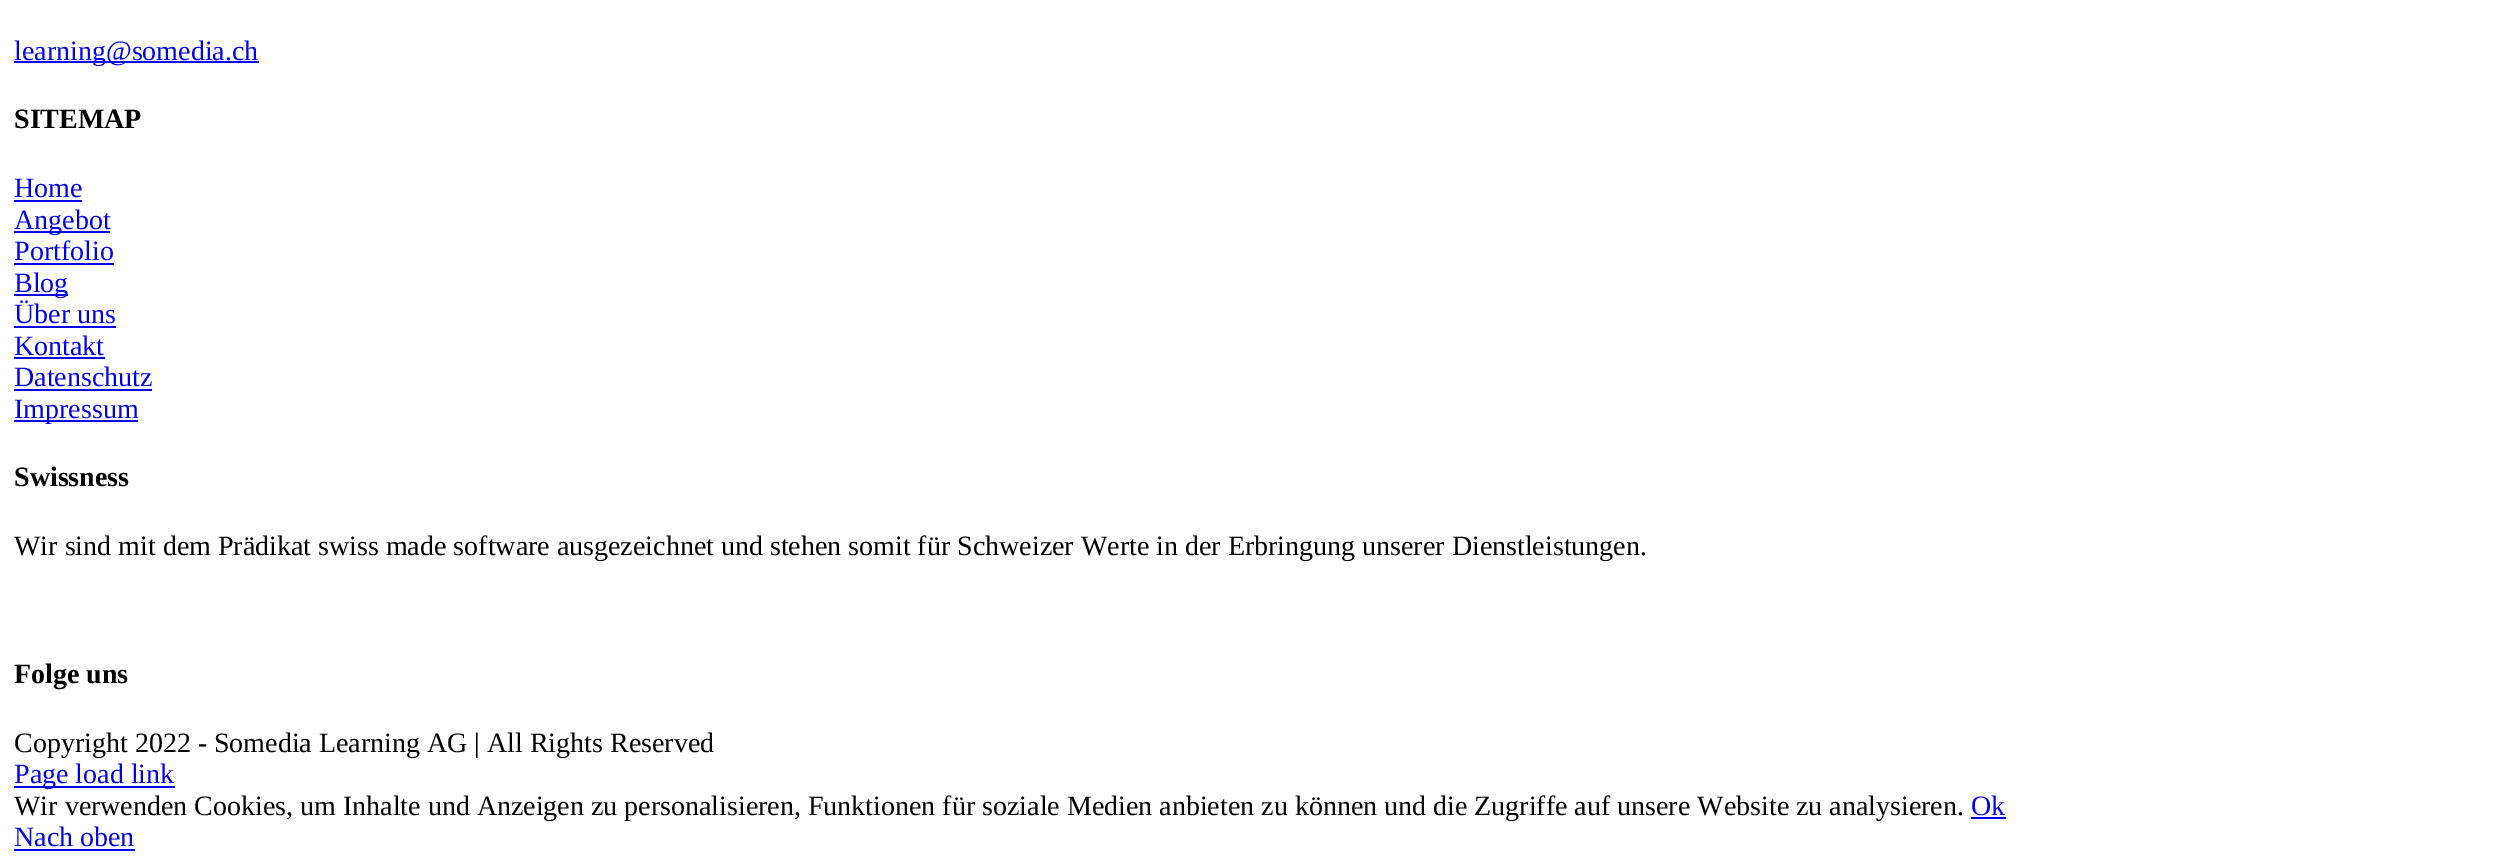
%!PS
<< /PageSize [2511 868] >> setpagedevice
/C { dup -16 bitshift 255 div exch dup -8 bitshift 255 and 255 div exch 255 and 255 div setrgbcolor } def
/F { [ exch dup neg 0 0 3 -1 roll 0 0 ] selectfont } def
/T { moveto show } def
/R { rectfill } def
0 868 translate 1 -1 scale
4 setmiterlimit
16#FFFFFF C
0 0 2511 868 R
16#0000EE C
14 61 245 2 R
/LiberationSerif-Regular 28 F
(learning@somedia.ch) 14 60 T
/LiberationSerif-Bold 28 F
16#000000 C
(SITEMAP) 14 128 T
/LiberationSerif-Regular 28 F
16#0000EE C
(Home) 14 197 T
14 200 68 2 R
14 231 96 2 R
(Angebot) 14 229 T
(Portfolio) 14 260 T
14 263 100 2 R
14 294 54 2 R
(Blog) 14 292 T
(Über uns) 14 323 T
14 326 102 2 R
(Kontakt) 14 355 T
14 357 91 2 R
(Datenschutz) 14 386 T
14 389 138 2 R
14 420 124 2 R
(Impressum) 14 418 T
/LiberationSerif-Bold 28 F
16#000000 C
(Swissness) 14 486 T
/LiberationSerif-Regular 28 F
(Wir sind mit dem Prädikat swiss made software ausgezeichnet und stehen somit für Schweizer Werte in der Erbringung unserer Dienstleistungen.) 14 555 T
/LiberationSerif-Bold 28 F
(Folge uns) 14 683 T
/LiberationSerif-Regular 28 F
(Copyright 2022 - Somedia Learning AG | All Rights Reserved) 14 752 T
16#0000EE C
14 786 161 2 R
(Page load link) 14 783 T
16#000000 C
(Wir verwenden Cookies, um Inhalte und Anzeigen zu personalisieren, Funktionen für soziale Medien anbieten zu können und die Zugriffe auf unsere Website zu analysieren.) 14 815 T
16#0000EE C
(Ok) 1971 815 T
1971 817 35 2 R
(Nach oben) 14 846 T
14 849 121 2 R
showpage
